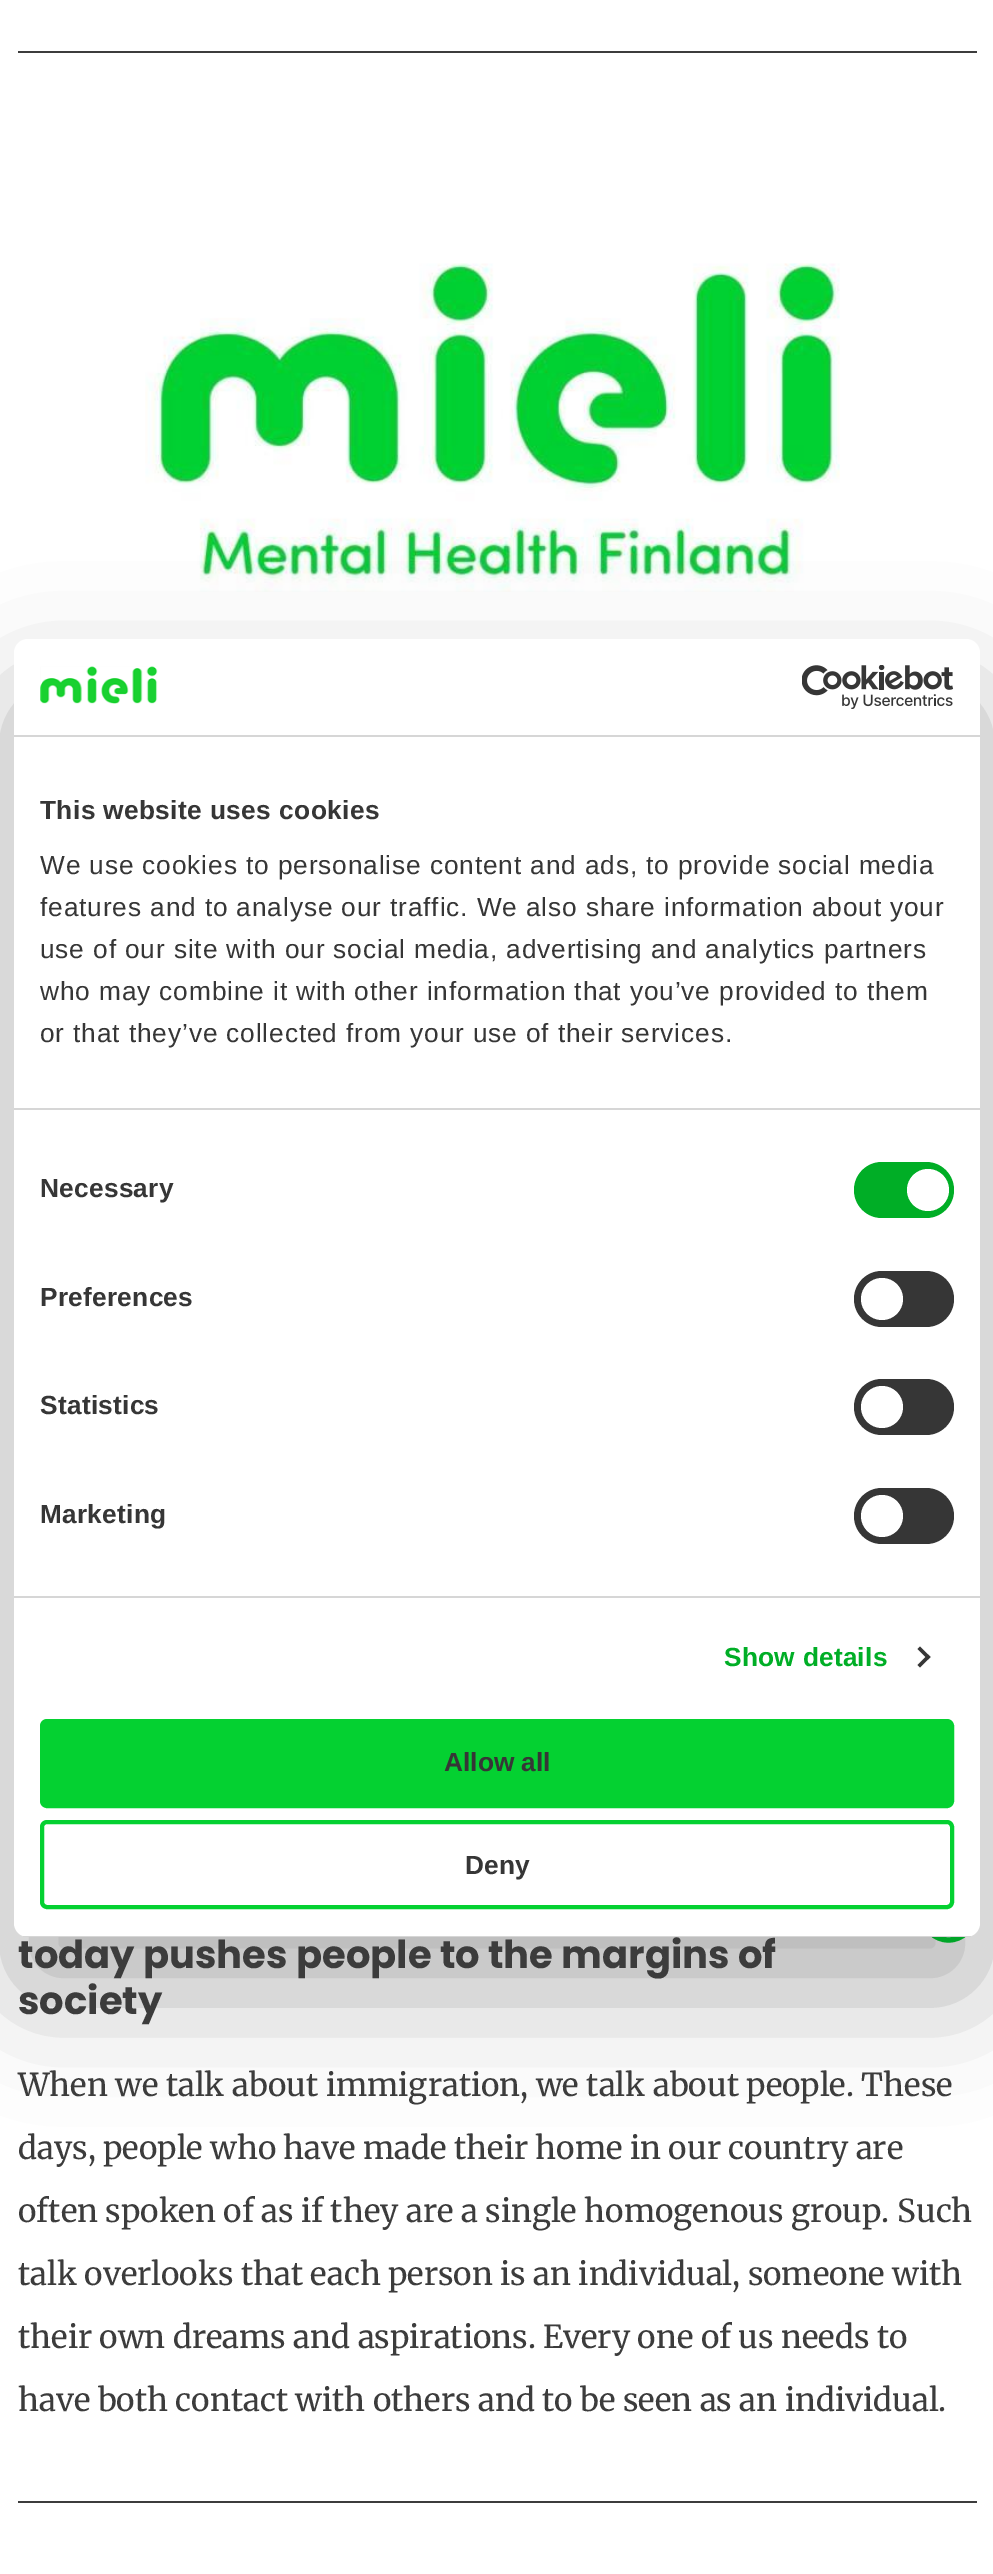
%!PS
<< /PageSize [993 2574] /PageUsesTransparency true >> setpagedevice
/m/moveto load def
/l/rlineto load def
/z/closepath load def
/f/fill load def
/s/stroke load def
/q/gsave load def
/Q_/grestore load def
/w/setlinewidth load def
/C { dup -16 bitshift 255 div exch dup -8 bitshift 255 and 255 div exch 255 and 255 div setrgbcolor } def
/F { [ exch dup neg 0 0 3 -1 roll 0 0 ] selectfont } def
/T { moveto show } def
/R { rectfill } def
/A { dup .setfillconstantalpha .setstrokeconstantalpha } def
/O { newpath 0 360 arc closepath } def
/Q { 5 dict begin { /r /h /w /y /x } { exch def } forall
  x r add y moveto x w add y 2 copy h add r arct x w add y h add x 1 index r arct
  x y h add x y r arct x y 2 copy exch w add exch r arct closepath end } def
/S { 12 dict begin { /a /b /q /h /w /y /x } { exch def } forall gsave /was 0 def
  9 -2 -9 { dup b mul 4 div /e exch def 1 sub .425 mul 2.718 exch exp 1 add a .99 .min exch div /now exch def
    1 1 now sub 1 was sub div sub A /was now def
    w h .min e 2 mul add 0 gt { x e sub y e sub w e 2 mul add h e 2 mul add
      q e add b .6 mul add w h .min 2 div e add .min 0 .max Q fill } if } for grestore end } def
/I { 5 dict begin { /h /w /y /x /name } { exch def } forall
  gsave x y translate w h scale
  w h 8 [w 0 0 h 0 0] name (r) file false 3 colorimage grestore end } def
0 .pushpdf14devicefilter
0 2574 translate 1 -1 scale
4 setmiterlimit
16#FFFFFF C
0 0 993 2574 R
(3.rgb) 145 263 695 329 I
16#00D132 C
5.2 w
948.5 1914.5 25.5 O s
16#000000 C
14 695 966 1298 14 59.5 .3 S
16#FFFFFF C
14 639 966 1298 14 Q f
16#D6D6D6 C
14 735 966 2 R
(1.rgb) 40 666 118 38 I
(2.rgb) 802 665 152 44 I
14 1108 966 2 R
/LiberationSans-Bold 26.25 F
16#363636 C
40 819 m .4 0 (This website uses cookies) ashow
/LiberationSans-Regular 26.25 F
40 874 m .88 0 (We use cookies to personalise content and ads, to provide social media) ashow
40 916 m .88 0 (features and to analyse our traffic. We also share information about your) ashow
40 958 m .88 0 (use of our site with our social media, advertising and analytics partners) ashow
40 1000 m .88 0 (who may combine it with other information that you’ve provided to them) ashow
40 1042 m .88 0 (or that they’ve collected from your use of their services.) ashow
16#D6D6D6 C
14 1596 966 2 R
/LiberationSans-Bold 26.25 F
16#363636 C
40 1197 m .25 0 (Necessary) ashow
16#00AE26 C
854 1162 100 56 28 Q f
16#FFFFFF C
928 1190 21 O f
16#363636 C
40 1306 m .25 0 (Preferences) ashow
854 1271 100 56 28 Q f
16#FFFFFF C
882 1299 21 O f
16#363636 C
40 1414 m .25 0 (Statistics) ashow
854 1379 100 56 28 Q f
16#FFFFFF C
882 1407 21 O f
16#363636 C
40 1523 m .25 0 (Marketing) ashow
854 1488 100 56 28 Q f
16#FFFFFF C
882 1516 21 O f
16#00AE26 C
724 1666 m .25 0 (Show details) ashow
16#363636 C
920 1646.5 m 10.5 10.5 l -2.5 2.5 l -10.5 -10.5 l z f
928 1654.5 m 2.5 2.5 l -10.5 10.5 l -2.5 -2.5 l z f
q
14 639 966 1298 14 Q clip newpath
16#D6D6D6 C
23 1936 948 1 R
Q_
16#04D131 C
42 1721 910 85 5 Q q f Q_
4 w
s
16#363636 C
(Allow all) 444 1771 T
16#04D131 C
42 1822 910 85 5 Q s
16#363636 C
(Deny) 465 1874 T
16#3C3C3C C
18 51 959 2 R
18 2501 959 2 R
/Poppins-Bold 38.5 F
(today pushes people to the margins of) 18 1968 T
(society) 18 2014 T
/Merriweather-Regular 31.5 F
(When we talk about immigration, we talk about people. These) 18 2096 T
(days, people who have made their home in our country are) 18 2159 T
(often spoken of as if they are a single homogenous group. Such) 18 2222 T
(talk overlooks that each person is an individual, someone with) 18 2285 T
(their own dreams and aspirations. Every one of us needs to) 18 2348 T
(have both contact with others and to be seen as an individual.) 18 2411 T
.poppdf14devicefilter showpage
